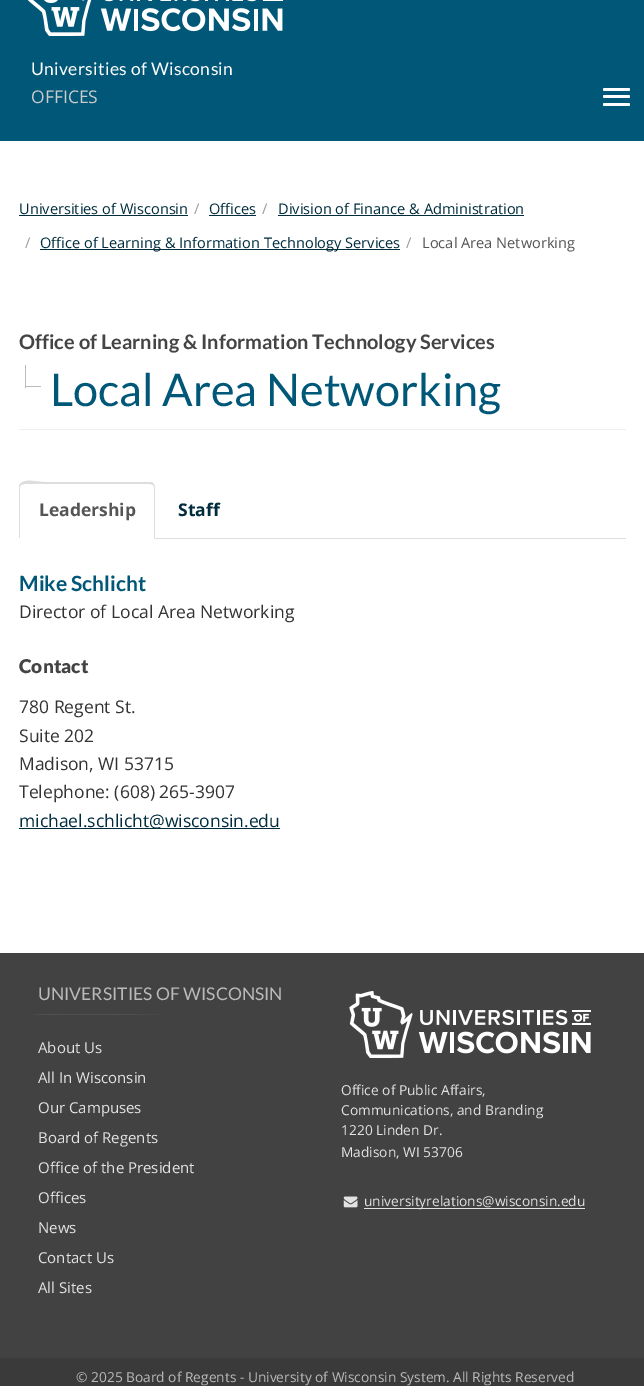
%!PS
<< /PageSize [644 1386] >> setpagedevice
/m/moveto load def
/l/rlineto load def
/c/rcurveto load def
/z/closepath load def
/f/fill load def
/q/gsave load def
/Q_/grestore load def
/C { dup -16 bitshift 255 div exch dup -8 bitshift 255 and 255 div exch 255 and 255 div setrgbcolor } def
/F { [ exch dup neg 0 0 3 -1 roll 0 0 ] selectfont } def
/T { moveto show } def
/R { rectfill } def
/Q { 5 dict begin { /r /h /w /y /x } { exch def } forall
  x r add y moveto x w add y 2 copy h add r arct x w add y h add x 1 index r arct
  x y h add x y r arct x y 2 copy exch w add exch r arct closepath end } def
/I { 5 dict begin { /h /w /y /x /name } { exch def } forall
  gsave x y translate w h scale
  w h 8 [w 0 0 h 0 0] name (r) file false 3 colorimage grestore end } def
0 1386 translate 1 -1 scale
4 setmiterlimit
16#FFFFFF C
0 0 644 1386 R
16#005777 C
0 0 644 141 R
(1.rgb) 28 0 255 36 I
/Lato-Regular 17.5 F
16#FFFFFF C
31 75 m .35 0 (Universities of Wisconsin) ashow
/OpenSans-Regular 17.5 F
16#CBCBCB C
(OFFICES) 31 103 T
16#FFFFFF C
603 88 27 3 1.5 Q f
603 95 27 3 1.5 Q f
603 103 27 3 1.5 Q f
/OpenSans-Regular 14.6 F
16#002D3D C
(Universities of Wisconsin) 19 214 T
19 215 169 1 R
16#999999 C
(/) 194 214 T
16#002D3D C
(Offices) 209 214 T
209 215 47 1 R
16#999999 C
(/) 262 214 T
16#002D3D C
(Division of Finance & Administration) 278 214 T
278 215 246 1 R
16#999999 C
(/) 25 248 T
16#002D3D C
40 249 360 1 R
(Office of Learning & Information Technology Services) 40 248 T
16#999999 C
(/) 406 248 T
16#555555 C
(Local Area Networking) 422 248 T
16#EEEEEE C
19 429 607 1 R
/Lato-Bold 20 F
16#444444 C
(Office of Learning & Information Technology Services) 19 349 T
16#BBBBBB C
25 386 16 1 R
25 365 1 23 R
/Lato-Regular 45 F
16#005777 C
(Local Area Networking) 50 406 T
16#DDDDDD C
155 538 471 1 R
24 484 m -3 1 l -1 -1 l 5 -6 16 -2 24 -2 c 108 0 l 2 2 l -1 1 l -3 -1 l z f
155 539 m 0 -51 l 0 -2 -1 -3 -1 -4 c -1 1 l 1 2 l 0 51 l z f
19 538 m 0 -50 l 0 -1 0 -3 1 -4 c 1 1 l -1 2 l 0 51 l z f
/OpenSans-Bold 17.5 F
16#555555 C
(Leadership) 39 516 T
16#002D3D C
(Staff) 178 516 T
/Lato-Bold 21 F
16#005777 C
(Mike Schlicht) 19 591 T
/OpenSans-Regular 17.5 F
16#333333 C
(Director of Local Area Networking) 19 618 T
/Lato-Black 19 F
16#444444 C
(Contact) 19 673 T
/OpenSans-Regular 17.5 F
16#333333 C
(780 Regent St.) 19 713 T
(Suite 202) 19 742 T
(Madison, WI 53715) 19 770 T
(Telephone: \(608\) 265-3907) 19 798 T
16#002D3D C
19 828 261 1 R
(michael.schlicht@wisconsin.edu) 19 827 T
16#424242 C
0 953 644 405 R
/Lato-Regular 17.5 F
16#BBBABA C
(UNIVERSITIES OF WISCONSIN) 38 1000 T
q 31 1014 m 129 0 l 0 1 l -129 0 l z clip newpath
<< /ShadingType 2 /ColorSpace /DeviceRGB /Coords [31 1014 180 1014] /Extend [true true] /Function << /FunctionType 3 /Domain [0 1] /Functions [<< /FunctionType 2 /Domain [0 1] /C0 [.259 .259 .259] /C1 [.306 .306 .306] /N 1 >> << /FunctionType 2 /Domain [0 1] /C0 [.306 .306 .306] /C1 [.318 .318 .318] /N 1 >> << /FunctionType 2 /Domain [0 1] /C0 [.318 .318 .318] /C1 [.31 .31 .31] /N 1 >> << /FunctionType 2 /Domain [0 1] /C0 [.31 .31 .31] /C1 [.318 .318 .318] /N 1 >> << /FunctionType 2 /Domain [0 1] /C0 [.318 .318 .318] /C1 [.306 .306 .306] /N 1 >> << /FunctionType 2 /Domain [0 1] /C0 [.306 .306 .306] /C1 [.259 .259 .259] /N 1 >> << /FunctionType 2 /Domain [0 1] /C0 [.259 .259 .259] /C1 [.259 .259 .259] /N 1 >> << /FunctionType 2 /Domain [0 1] /C0 [.259 .259 .259] /C1 [.259 .259 .259] /N 1 >>] /Bounds [.06 .12 .25 .56 .7 .91 .99] /Encode [0 1 0 1 0 1 0 1 0 1 0 1 0 1 0 1] >> >> shfill Q_
/OpenSans-Regular 15 F
16#E4E3E3 C
(About Us) 38 1053 T
(All In Wisconsin) 38 1083 T
(Our Campuses) 38 1113 T
(Board of Regents) 38 1143 T
(Office of the President) 38 1173 T
(Offices) 38 1203 T
(News) 38 1233 T
(Contact Us) 38 1263 T
(All Sites) 38 1293 T
(2.rgb) 349 991 242 67 I
/OpenSans-Regular 13.75 F
(Office of Public Affairs,) 341 1095 T
(Communications, and Branding) 341 1115 T
(1220 Linden Dr.) 341 1135 T
(Madison, WI 53706) 341 1157 T
(3.rgb) 343 1196 15 12 I
364 1208 221 1 R
(universityrelations@wisconsin.edu) 364 1206 T
16#3A3A3A C
0 1358 644 28 R
16#BBBABA C
(© 2025 Board of Regents - University of Wisconsin System. All Rights Reserved) 76 1382 T
showpage
